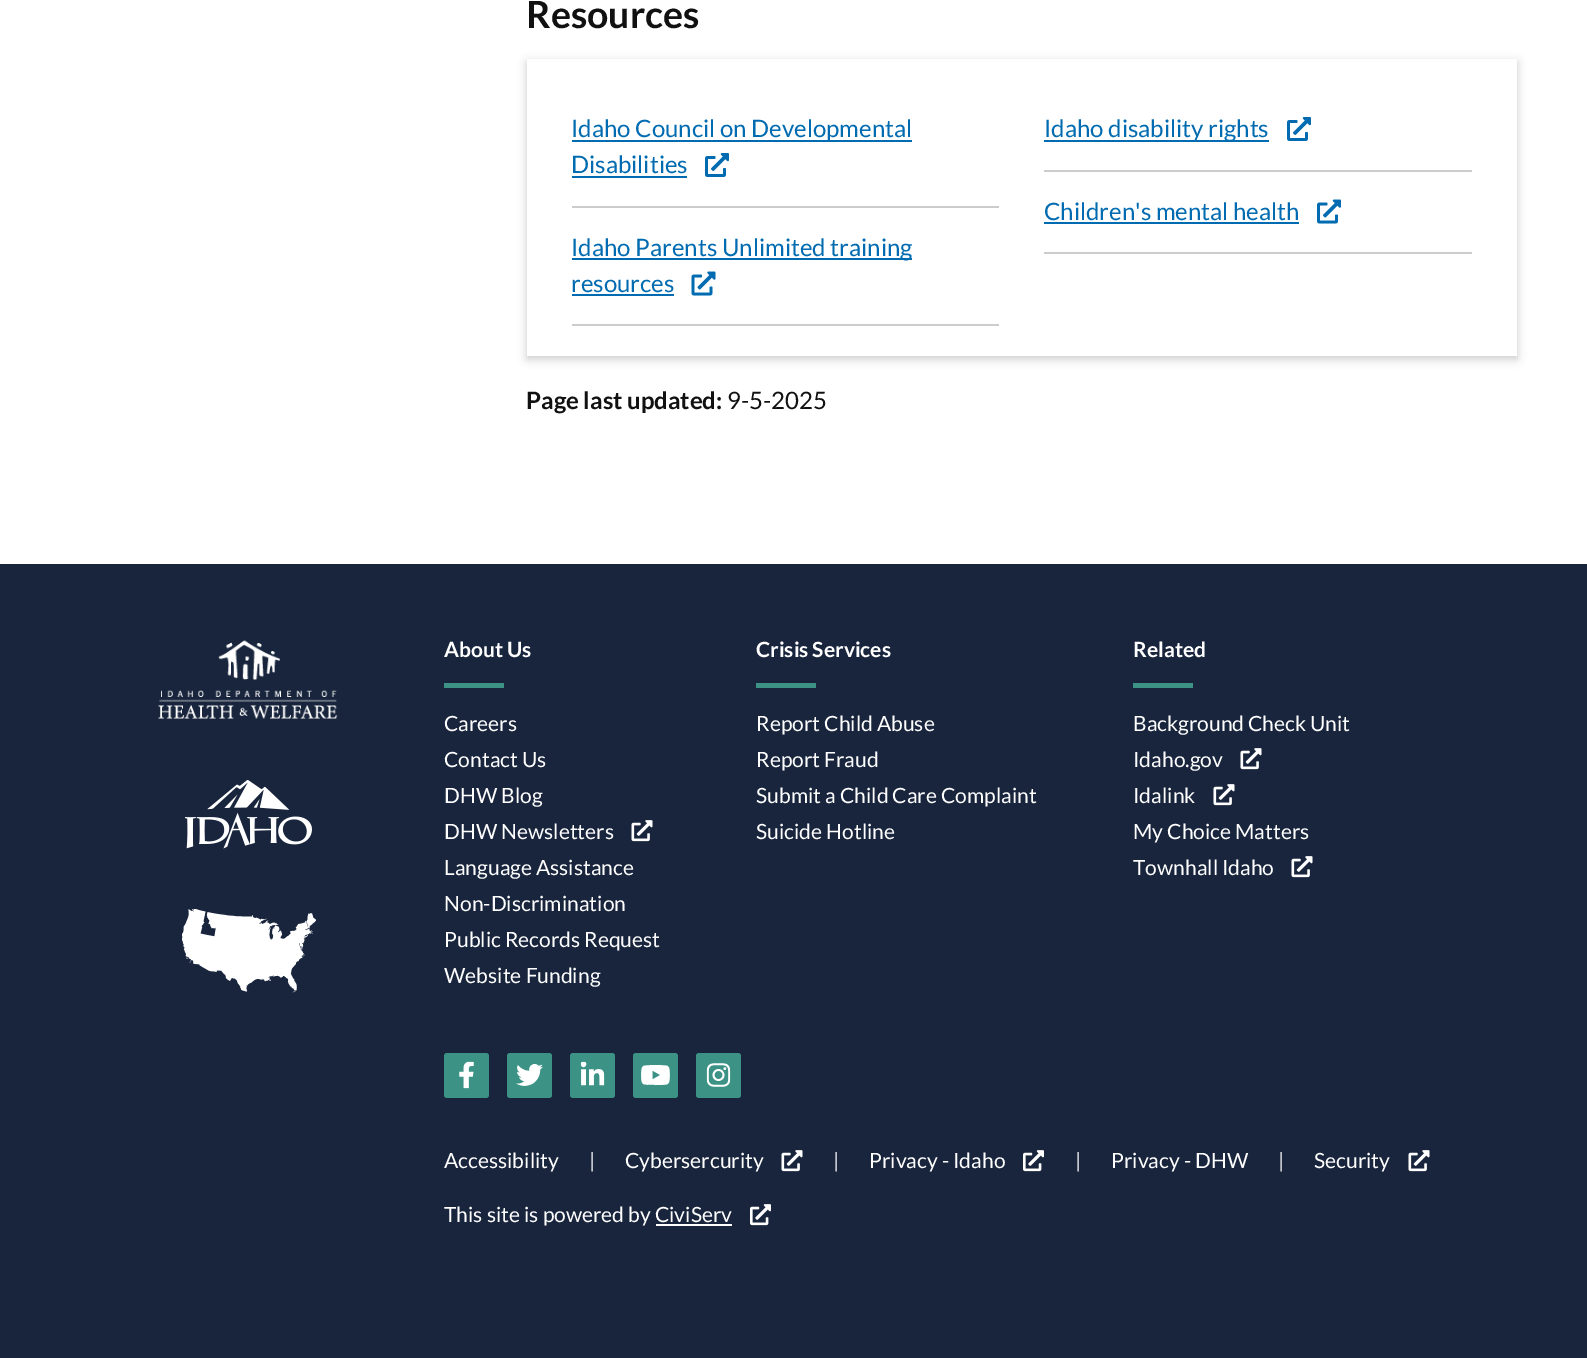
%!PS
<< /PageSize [1587 1358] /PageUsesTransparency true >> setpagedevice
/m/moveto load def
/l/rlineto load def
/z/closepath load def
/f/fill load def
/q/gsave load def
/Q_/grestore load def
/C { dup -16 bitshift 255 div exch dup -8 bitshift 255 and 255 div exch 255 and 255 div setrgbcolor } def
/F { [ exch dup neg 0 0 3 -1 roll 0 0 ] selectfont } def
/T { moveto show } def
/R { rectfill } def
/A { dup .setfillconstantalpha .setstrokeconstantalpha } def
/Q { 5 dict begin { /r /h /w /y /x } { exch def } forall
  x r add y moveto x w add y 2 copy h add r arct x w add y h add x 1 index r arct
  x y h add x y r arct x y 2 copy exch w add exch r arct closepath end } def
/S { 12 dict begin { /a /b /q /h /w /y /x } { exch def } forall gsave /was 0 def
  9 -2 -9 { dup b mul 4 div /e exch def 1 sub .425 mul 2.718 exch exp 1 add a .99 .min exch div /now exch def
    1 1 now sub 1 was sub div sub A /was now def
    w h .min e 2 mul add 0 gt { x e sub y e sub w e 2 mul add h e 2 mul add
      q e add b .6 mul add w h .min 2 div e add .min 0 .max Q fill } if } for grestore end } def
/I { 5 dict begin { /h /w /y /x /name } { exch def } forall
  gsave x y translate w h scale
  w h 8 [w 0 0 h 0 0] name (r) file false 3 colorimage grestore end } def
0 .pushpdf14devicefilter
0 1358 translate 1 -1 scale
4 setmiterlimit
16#FFFFFF C
0 0 1587 1358 R
/Lato-Bold 37.5 F
16#111111 C
(Resources) 526 28 T
q
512 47 m 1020 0 l 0 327 l -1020 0 l z 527 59 m 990 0 l 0 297 l -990 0 l z eoclip newpath
16#000000 C
527 62 990 297 0 4.5 .2 S
Q_
16#CCCCCC C
572 206 427 2 R
16#006BB0 C
572 140 340 2 R
/Lato-Regular 24 F
(Idaho Council on Developmental) 571 137 T
(Disabilities) 571 173 T
572 176 115 2 R
(1.rgb) 705 153 24 24 I
16#CCCCCC C
1044 170 428 2 R
16#006BB0 C
1044 140 225 2 R
(Idaho disability rights) 1044 137 T
(1.rgb) 1287 117 24 24 I
16#CCCCCC C
1044 252 428 2 R
16#006BB0 C
(Children's mental health) 1044 220 T
1044 222 255 2 R
(2.rgb) 1317 199 24 25 I
16#CCCCCC C
572 324 427 2 R
16#006BB0 C
572 258 340 2 R
(Idaho Parents Unlimited training) 571 256 T
(resources) 571 292 T
572 294 102 2 R
(3.rgb) 691 271 25 25 I
/Lato-Bold 24 F
16#111111 C
(Page last updated:) 526 409 T
/Lato-Regular 24 F
(9-5-2025) 727 409 T
16#18253C C
0 564 1587 794 R
(4.rgb) 158 640 180 79 I
(5.rgb) 185 780 127 69 I
(6.rgb) 182 909 134 84 I
/Lato-Bold 21 F
16#FFFFFF C
(About Us) 444 657 T
16#3B9285 C
444 683 60 5 R
/Lato-Regular 21 F
16#FFFFFF C
(Careers) 444 731 T
(Contact Us) 444 767 T
(DHW Blog) 444 803 T
(DHW Newsletters) 444 839 T
(7.rgb) 631 820 22 22 I
(Language Assistance) 444 875 T
(Non-Discrimination) 444 911 T
(Public Records Request) 444 947 T
(Website Funding) 444 983 T
/Lato-Bold 21 F
(Crisis Services) 756 657 T
16#3B9285 C
756 683 60 5 R
/Lato-Regular 21 F
16#FFFFFF C
(Report Child Abuse) 756 731 T
(Report Fraud) 756 767 T
(Submit a Child Care Complaint) 756 803 T
(Suicide Hotline) 756 839 T
/Lato-Bold 21 F
(Related) 1133 657 T
16#3B9285 C
1133 683 60 5 R
/Lato-Regular 21 F
16#FFFFFF C
(Background Check Unit) 1133 731 T
(Idaho.gov) 1133 767 T
(7.rgb) 1240 748 22 22 I
(Idalink) 1133 803 T
(7.rgb) 1213 784 22 22 I
(My Choice Matters) 1133 839 T
(Townhall Idaho) 1133 875 T
(7.rgb) 1291 856 22 22 I
16#3B9285 C
444 1053 45 45 3 Q f
(8.rgb) 459 1061 15 28 I
507 1053 45 45 3 Q f
(9.rgb) 516 1064 27 22 I
570 1053 45 45 3 Q f
(10.rgb) 580 1061 25 25 I
633 1053 45 45 3 Q f
(11.rgb) 641 1065 29 21 I
696 1053 45 45 3 Q f
(12.rgb) 706 1063 25 24 I
16#FFFFFF C
(Accessibility) 444 1168 T
(|) 589 1168 T
(Cybersercurity) 625 1168 T
(7.rgb) 781 1150 22 22 I
(|) 833 1168 T
(Privacy - Idaho) 869 1168 T
(13.rgb) 1023 1150 21 22 I
(|) 1075 1168 T
(Privacy - DHW) 1111 1168 T
(|) 1278 1168 T
(Security) 1314 1168 T
(7.rgb) 1408 1150 22 22 I
656 1224 76 2 R
(13.rgb) 750 1204 21 22 I
(This site is powered by CiviServ) 444 1222 T
.poppdf14devicefilter showpage
